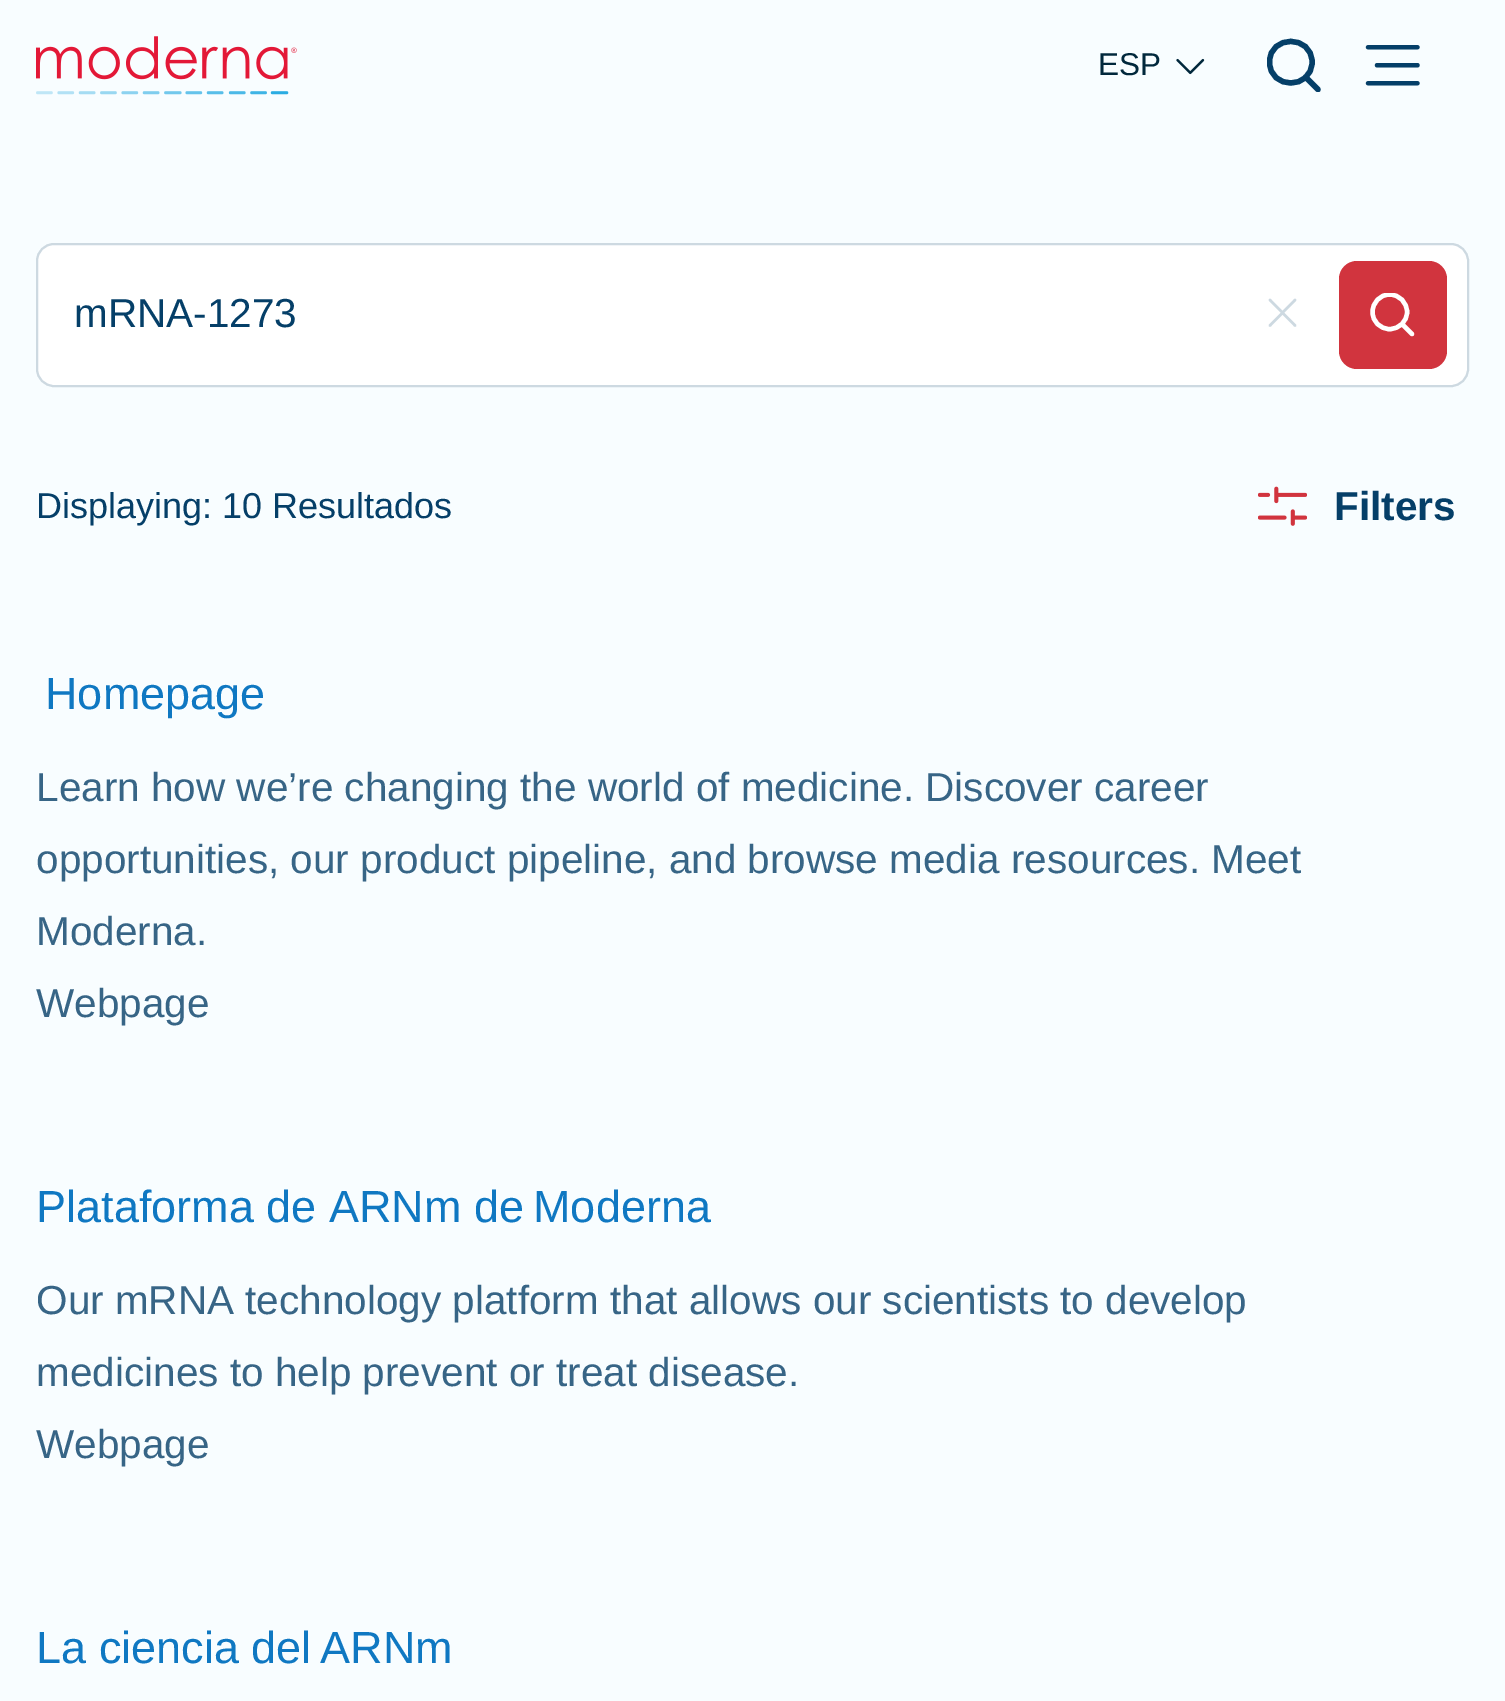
%!PS
<< /PageSize [1505 1701] >> setpagedevice
/m/moveto load def
/l/rlineto load def
/c/rcurveto load def
/z/closepath load def
/f/fill load def
/s/stroke load def
/q/gsave load def
/Q_/grestore load def
/w/setlinewidth load def
/C { dup -16 bitshift 255 div exch dup -8 bitshift 255 and 255 div exch 255 and 255 div setrgbcolor } def
/F { [ exch dup neg 0 0 3 -1 roll 0 0 ] selectfont } def
/T { moveto show } def
/R { rectfill } def
/Q { 5 dict begin { /r /h /w /y /x } { exch def } forall
  x r add y moveto x w add y 2 copy h add r arct x w add y h add x 1 index r arct
  x y h add x y r arct x y 2 copy exch w add exch r arct closepath end } def
/I { 5 dict begin { /h /w /y /x /name } { exch def } forall
  gsave x y translate w h scale
  w h 8 [w 0 0 h 0 0] name (r) file false 3 colorimage grestore end } def
0 1701 translate 1 -1 scale
4 setmiterlimit
16#F8FDFF C
0 0 1505 1701 R
(1.rgb) 36 36 261 59 I
/LiberationSans-Regular 31.5 F
16#01283C C
(ESP) 1098 75 T
(2.rgb) 1176 58 29 17 I
q
1267 38 54 54 rectclip
16#053F68 C
5.4 w
1 setlinecap
1 setlinejoin
1305.5 77 m 12.5 12.5 l 1312 62 m 0 28 -42.5 28 -42.5 0 c 0 -27.5 42.5 -27.5 42.5 0 c z s
Q_
(3.rgb) 1365 45 55 41 I
16#FFFFFF C
37 244 1431 142 17 Q q f Q_
16#CDD9E1 C
2 w
s
/LiberationSans-Regular 40.5 F
16#053F68 C
(mRNA-1273) 74 327 T
16#CDD9E1 C
2.5 w
1 setlinecap
1 setlinejoin
1295 300 m -25 25.5 l 1295 325.5 m -25 -25.5 l s
16#D1343E C
1339 261 108 108 18 Q f
q
1370 293 45 45 rectclip
16#FFFFFF C
4.4 w
1402 324 m 10 10 l 1407 312 m 0 9.5 -7.5 17 -17.5 17 c -9.5 0 -17 -7.5 -17 -17 c 0 -9.5 7.5 -17.5 17 -17.5 c 10 0 17.5 8 17.5 17.5 c z s
Q_
/LiberationSans-Regular 36 F
16#053F68 C
(Displaying: 10 Resultados) 36 518 T
(4.rgb) 1258 486 49 40 I
/LiberationSans-Bold 40.5 F
(Filters) 1334 520 T
/LiberationSans-Regular 45 F
16#0F78C2 C
(Homepage) 45 709 T
/LiberationSans-Regular 40.5 F
16#376586 C
(Learn how we’re changing the world of medicine. Discover career) 36 801 T
(opportunities, our product pipeline, and browse media resources. Meet) 36 873 T
(Moderna.) 36 945 T
(Webpage) 36 1017 T
/LiberationSans-Regular 45 F
16#0F78C2 C
(Plataforma de ARNm de) 36 1222 T
(Moderna) 533 1222 T
/LiberationSans-Regular 40.5 F
16#376586 C
(Our mRNA technology platform that allows our scientists to develop) 36 1314 T
(medicines to help prevent or treat disease.) 36 1386 T
(Webpage) 36 1458 T
/LiberationSans-Regular 45 F
16#0F78C2 C
(La ciencia del) 36 1663 T
(ARNm) 320 1663 T
showpage
